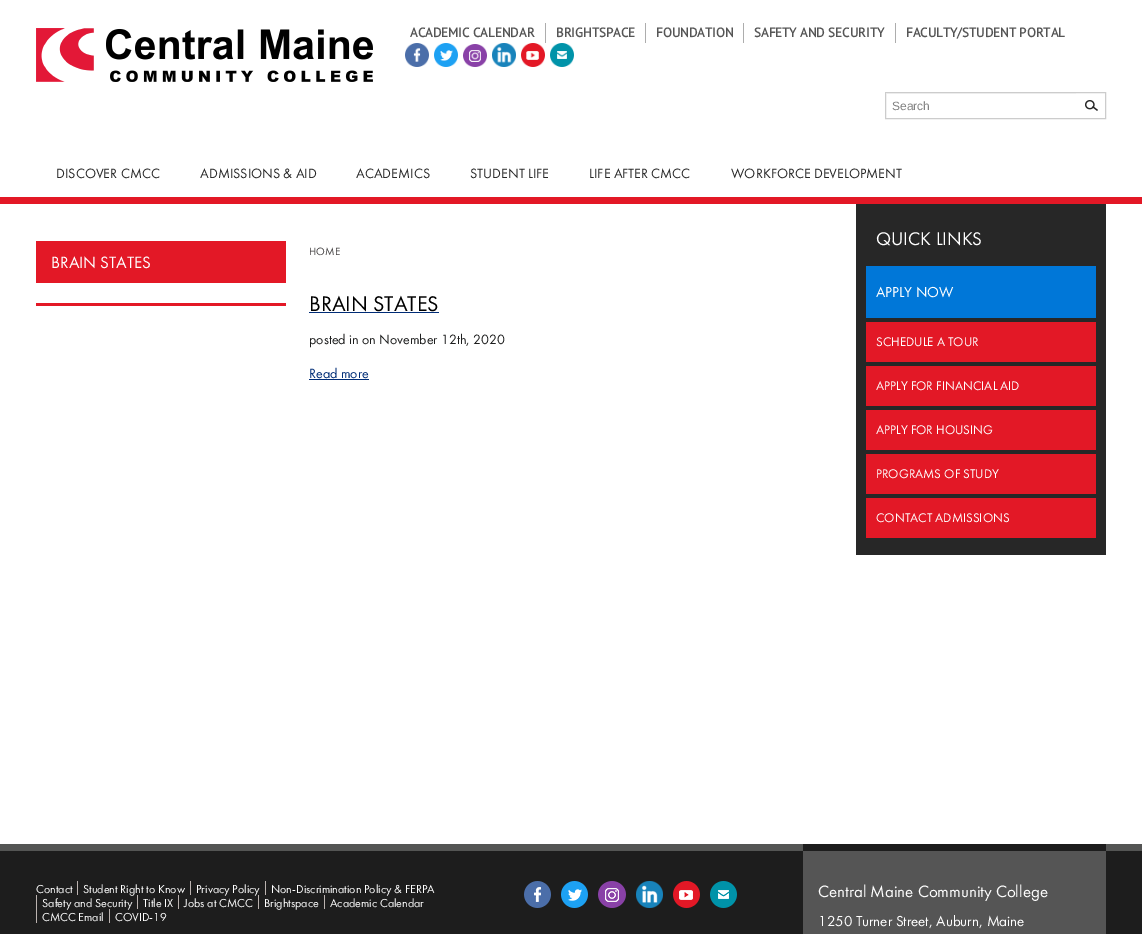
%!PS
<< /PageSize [1142 934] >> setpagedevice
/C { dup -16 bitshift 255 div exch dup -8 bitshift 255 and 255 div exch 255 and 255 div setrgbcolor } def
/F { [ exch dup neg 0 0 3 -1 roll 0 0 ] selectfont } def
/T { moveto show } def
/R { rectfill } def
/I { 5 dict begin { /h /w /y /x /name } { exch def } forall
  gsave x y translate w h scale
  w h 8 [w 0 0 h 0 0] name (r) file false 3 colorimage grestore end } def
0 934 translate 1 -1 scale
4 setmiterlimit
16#FFFFFF C
0 0 1142 934 R
16#E31826 C
0 197 1142 7 R
(1.rgb) 36 28 337 54 I
16#ADADAD C
545 23 1 20 R
/PTSans-Bold 13 F
16#555555 C
(ACADEMIC CALENDAR) 410 37 T
16#ADADAD C
645 23 1 20 R
16#555555 C
(BRIGHTSPACE) 556 37 T
16#ADADAD C
743 23 1 20 R
16#555555 C
(FOUNDATION) 656 37 T
16#ADADAD C
895 23 1 20 R
16#555555 C
(SAFETY AND SECURITY) 754 37 T
(FACULTY/STUDENT PORTAL) 906 37 T
(2.rgb) 405 43 24 24 I
(3.rgb) 434 43 24 24 I
(4.rgb) 463 44 24 23 I
(5.rgb) 492 43 24 24 I
(6.rgb) 521 43 24 24 I
(7.rgb) 550 43 24 24 I
16#CCCCCC C
885.5 92.5 220 26 rectstroke
16#ECECEC C
886 93 190 1 R
/LiberationSans-Regular 12 F
16#828282 C
(Search) 892 110 T
(8.rgb) 1085 100 13 11 I
/FuturaPT-Regular 14 F
16#272727 C
(DISCOVER CMCC) 56 178 T
(ADMISSIONS & AID) 200 178 T
(ACADEMICS) 356 178 T
(STUDENT LIFE) 470 178 T
(LIFE AFTER CMCC) 589 178 T
(WORKFORCE DEVELOPMENT) 731 178 T
16#E31826 C
36 241 250 42 R
/FuturaPT-Regular 17 F
16#FFFFFF C
(BRAIN STATES) 51 268 T
16#E31826 C
36 303 250 3 R
/FuturaPT-Regular 11 F
16#464344 C
(HOME) 309 255 T
/FuturaPT-Regular 22 F
16#000000 C
(BRAIN STATES) 309 311 T
16#002C76 C
309 312 130 1 R
/FuturaPT-Regular 14 F
16#1D1E1E C
(posted in on November 12th, 2020) 309 344 T
16#002C76 C
(Read more) 309 378 T
309 379 60 1 R
16#272727 C
856 204 250 351 R
/FuturaPT-Regular 19 F
16#FFFFFF C
(QUICK LINKS) 876 245 T
16#0077D8 C
866 266 230 52 R
/FuturaPT-Regular 15 F
16#FFFFFF C
(APPLY NOW) 876 297 T
16#E31826 C
866 322 230 40 R
/FuturaPT-Regular 13 F
16#FFFFFF C
(SCHEDULE A TOUR) 876 346 T
16#E31826 C
866 366 230 40 R
16#FFFFFF C
(APPLY FOR FINANCIAL AID) 876 390 T
16#E31826 C
866 410 230 40 R
16#FFFFFF C
(APPLY FOR HOUSING) 876 434 T
16#E31826 C
866 454 230 40 R
16#FFFFFF C
(PROGRAMS OF STUDY) 876 478 T
16#E31826 C
866 498 230 40 R
16#FFFFFF C
(CONTACT ADMISSIONS) 876 522 T
16#1D1D1D C
0 851 1142 83 R
16#545554 C
0 844 1142 7 R
/FuturaPT-Regular 12 F
16#FFFFFF C
(Contact) 36 893 T
16#BBB3B0 C
77 881 1 14 R
16#FFFFFF C
(Student Right to Know) 83 893 T
16#BBB3B0 C
190 881 1 14 R
16#FFFFFF C
(Privacy Policy) 196 893 T
16#BBB3B0 C
265 881 1 14 R
16#FFFFFF C
(Non-Discrimination Policy & FERPA) 271 893 T
16#BBB3B0 C
36 895 1 28 R
16#FFFFFF C
(Safety and Security) 42 907 T
16#BBB3B0 C
137 895 1 14 R
16#FFFFFF C
(Title IX) 143 907 T
16#BBB3B0 C
178 895 1 14 R
16#FFFFFF C
(Jobs at CMCC) 184 907 T
16#BBB3B0 C
258 895 1 14 R
16#FFFFFF C
(Brightspace) 264 907 T
16#BBB3B0 C
324 895 1 14 R
16#FFFFFF C
(Academic Calendar) 330 907 T
(CMCC Email) 42 921 T
16#BBB3B0 C
109 909 1 14 R
16#FFFFFF C
(COVID-19) 115 921 T
(9.rgb) 524 881 27 27 I
(10.rgb) 561 881 27 27 I
(11.rgb) 598 881 28 27 I
(12.rgb) 636 881 27 27 I
(13.rgb) 673 881 27 27 I
(14.rgb) 710 881 27 27 I
16#555555 C
803 851 303 83 R
16#1D1D1D C
803 844 303 7 R
/FuturaPT-Regular 17 F
16#FFFFFF C
(Central Maine Community College) 818 897 T
/FuturaPT-Regular 15 F
(1250 Turner Street, Auburn, Maine) 818 926 T
showpage
